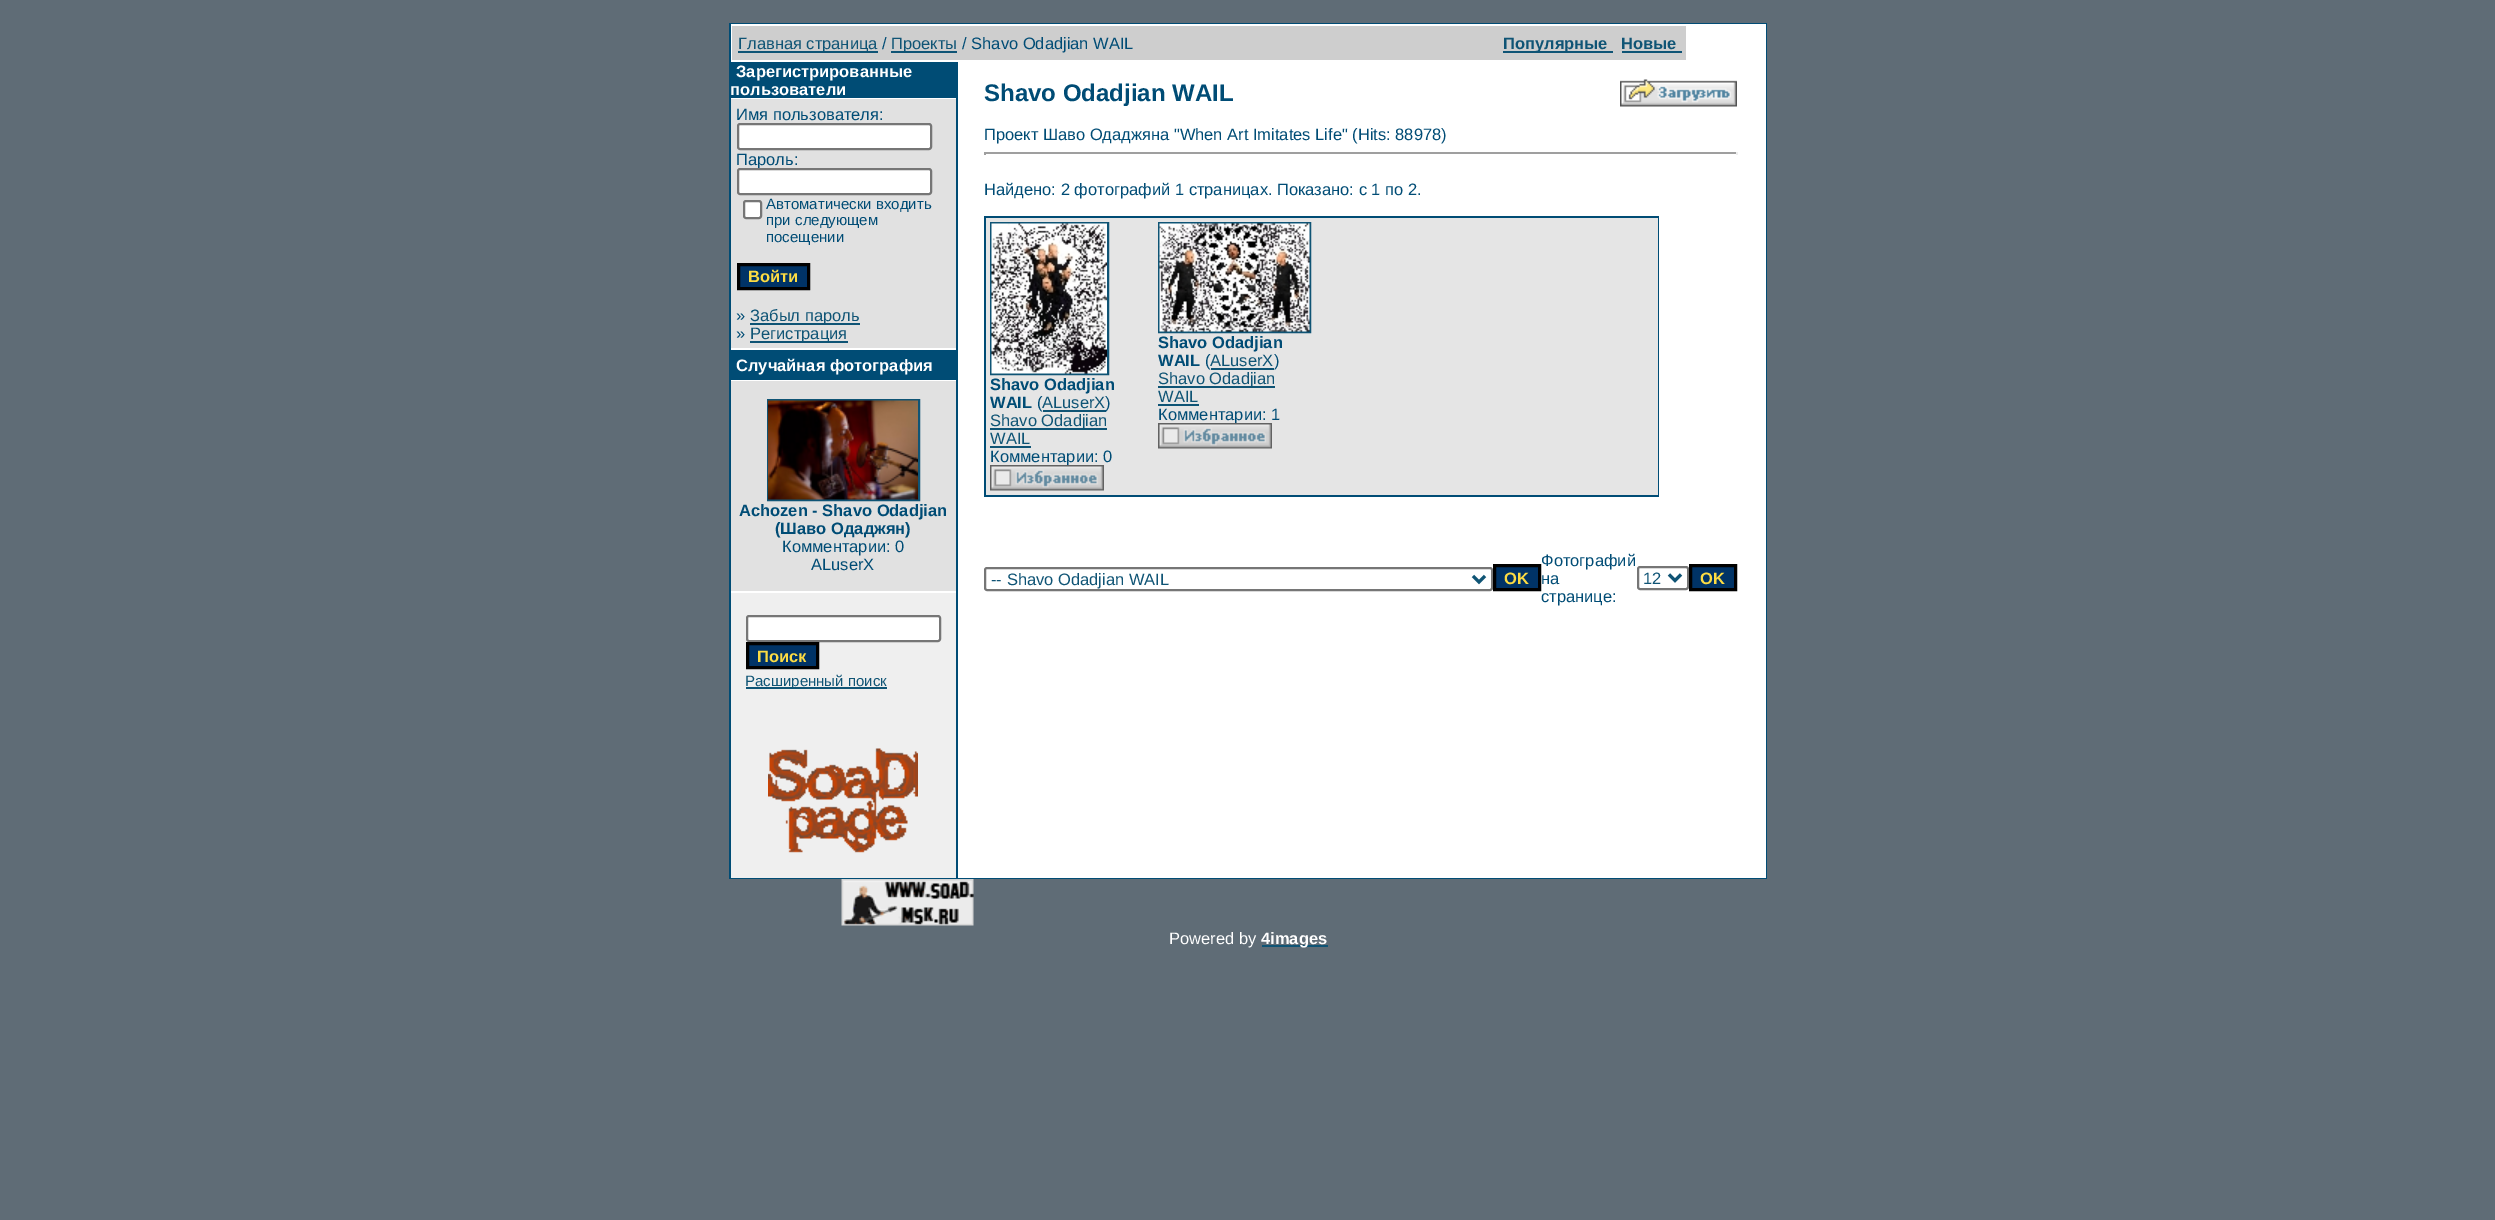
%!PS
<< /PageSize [2495 1220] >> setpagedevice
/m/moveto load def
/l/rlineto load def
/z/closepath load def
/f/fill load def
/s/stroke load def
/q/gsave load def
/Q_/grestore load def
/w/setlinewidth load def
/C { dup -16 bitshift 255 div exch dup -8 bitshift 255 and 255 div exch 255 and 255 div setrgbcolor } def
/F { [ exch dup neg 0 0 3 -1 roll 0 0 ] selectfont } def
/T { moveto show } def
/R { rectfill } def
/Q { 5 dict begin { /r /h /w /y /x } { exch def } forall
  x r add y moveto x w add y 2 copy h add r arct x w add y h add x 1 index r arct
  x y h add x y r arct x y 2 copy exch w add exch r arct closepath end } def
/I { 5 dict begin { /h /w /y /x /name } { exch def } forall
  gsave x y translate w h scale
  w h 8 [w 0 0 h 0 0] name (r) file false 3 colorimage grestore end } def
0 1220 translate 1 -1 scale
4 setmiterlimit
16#5F6C76 C
0 0 2495 1220 R
16#004C75 C
729 23 1038 856 R
16#FFFFFF C
731 24 1035 854 R
16#CECECE C
732 26 954 34 R
16#0F5475 C
738 51 140 2 R
/LiberationSans-Regular 16.5 F
(Главная страница) 738 49 T
16#004C75 C
(/) 882 49 T
16#0F5475 C
891 51 66 2 R
(Проекты) 891 49 T
16#004C75 C
(/ Shavo Odadjian WAIL) 962 49 T
16#0F5475 C
1503 51 110 2 R
/LiberationSans-Bold 16.5 F
(Популярные) 1503 49 T
(Новые) 1621 49 T
1622 51 60 2 R
16#EFEFEF C
731 593 225 285 R
16#004C75 C
731 62 225 36 R
16#FFFFFF C
(Зарегистрированные) 736 77 T
(пользователи) 730 95 T
16#E1E1E1 C
731 99 225 249 R
/LiberationSans-Regular 16.5 F
16#004C75 C
(Имя пользователя:) 736 120 T
16#FFFFFF C
738 124 193 25 2 Q q f Q_
16#767676 C
2 w
s
16#004C75 C
(Пароль:) 736 165 T
16#FFFFFF C
738 169 193 25 2 Q q f Q_
16#767676 C
s
16#FFFFFF C
744 201 17 17 2 Q q f Q_
16#767676 C
s
/LiberationSans-Regular 15 F
16#004C75 C
(Автоматически входить) 766 209 T
(при следующем) 766 225 T
(посещении) 766 242 T
16#003366 C
738.5 264.5 m 70 0 l 0 24 l -70 0 l z q f Q_
16#000000 C
3 w
s
/LiberationSans-Bold 16.5 F
16#FCDC43 C
(Войти) 748 282 T
/LiberationSans-Regular 16.5 F
16#004C75 C
(») 736 321 T
16#0F5475 C
750 323 110 2 R
(Забыл пароль) 750 321 T
16#004C75 C
(») 736 339 T
16#0F5475 C
750 341 98 2 R
(Регистрация) 750 339 T
16#004C75 C
731 350 225 30 R
/LiberationSans-Bold 16.5 F
16#FFFFFF C
(Случайная фотография) 736 371 T
16#E1E1E1 C
731 381 225 210 R
16#0F5475 C
2 w
768 400 151 100 rectstroke
(1.rgb) 768 400 150 100 I
16#004C75 C
(Achozen - Shavo Odadjian) 739 516 T
(\(Шаво Одаджян\)) 775 534 T
/LiberationSans-Regular 16.5 F
(Комментарии: 0) 782 552 T
(ALuserX) 811 570 T
16#FFFFFF C
747 616 193 25 2 Q q f Q_
16#767676 C
s
16#003366 C
747.5 643.5 m 70 0 l 0 24 l -70 0 l z q f Q_
16#000000 C
3 w
s
/LiberationSans-Bold 16.5 F
16#FCDC43 C
(Поиск) 757 662 T
16#0F5475 C
746 687 141 2 R
/LiberationSans-Regular 15 F
(Расширенный поиск) 745 686 T
(2.rgb) 768 748 150 105 I
16#004C75 C
956 62 2 816 R
/LiberationSans-Bold 24 F
(Shavo Odadjian WAIL) 984 101 T
(3.rgb) 1620 79 117 28 I
/LiberationSans-Regular 16.5 F
(Проект Шаво Одаджяна "When Art Imitates Life" \(Hits: 88978\)) 984 140 T
16#9F9F9F C
984 152 753 2 R
16#EEEEEE C
1736 152 2 3 R
16#9F9F9F C
984 152 2 3 R
16#004C75 C
(Найдено: 2 фотографий 1 страницах. Показано: с 1 по 2.) 984 195 T
984 216 675 281 R
16#E5E5E5 C
986 218 672 277 R
16#0F5475 C
2 w
991 223 117 151 rectstroke
(4.rgb) 991 223 116 151 I
/LiberationSans-Bold 16.5 F
16#004C75 C
(Shavo Odadjian) 990 390 T
(WAIL) 990 408 T
/LiberationSans-Regular 16.5 F
(\() 1037 408 T
16#0F5475 C
(ALuserX) 1042 408 T
1043 410 63 2 R
16#004C75 C
(\)) 1105 408 T
16#0F5475 C
990 428 117 2 R
(Shavo Odadjian) 990 426 T
(WAIL) 990 444 T
990 446 41 2 R
16#004C75 C
(Комментарии: 0) 990 462 T
(5.rgb) 990 465 114 26 I
16#0F5475 C
1159 223 151 109 rectstroke
(6.rgb) 1159 223 151 109 I
/LiberationSans-Bold 16.5 F
16#004C75 C
(Shavo Odadjian) 1158 348 T
(WAIL) 1158 366 T
/LiberationSans-Regular 16.5 F
(\() 1205 366 T
16#0F5475 C
(ALuserX) 1210 366 T
1211 368 63 2 R
16#004C75 C
(\)) 1274 366 T
16#0F5475 C
1158 386 117 2 R
(Shavo Odadjian) 1158 384 T
(WAIL) 1158 402 T
1158 404 41 2 R
16#004C75 C
(Комментарии: 1) 1158 420 T
(7.rgb) 1158 423 114 26 I
16#767676 C
985 568 507 22 2 Q s
16#0F5475 C
3 w
1473 576 m 6 6 l 6 -6 l s
(-- Shavo Odadjian WAIL) 991 585 T
16#003366 C
1494.5 565.5 m 45 0 l 0 24 l -45 0 l z q f Q_
16#000000 C
s
/LiberationSans-Bold 16.5 F
16#FCDC43 C
(OK) 1504 584 T
/LiberationSans-Regular 16.5 F
16#004C75 C
(Фотографий) 1541 566 T
(на) 1541 584 T
(странице:) 1541 602 T
16#767676 C
2 w
1638 567 50 22 2 Q s
16#0F5475 C
3 w
1669 574.5 m 6 6 l 6 -6 l s
(12) 1643 584 T
16#003366 C
1690.5 565.5 m 45 0 l 0 24 l -45 0 l z q f Q_
16#000000 C
s
/LiberationSans-Bold 16.5 F
16#FCDC43 C
(OK) 1700 584 T
(8.rgb) 841 879 133 47 I
/LiberationSans-Regular 16.5 F
16#FFFFFF C
(Powered by) 1169 944 T
16#0F5475 C
1262 945 66 2 R
/LiberationSans-Bold 16.5 F
16#FFFFFF C
(4images) 1261 944 T
showpage
